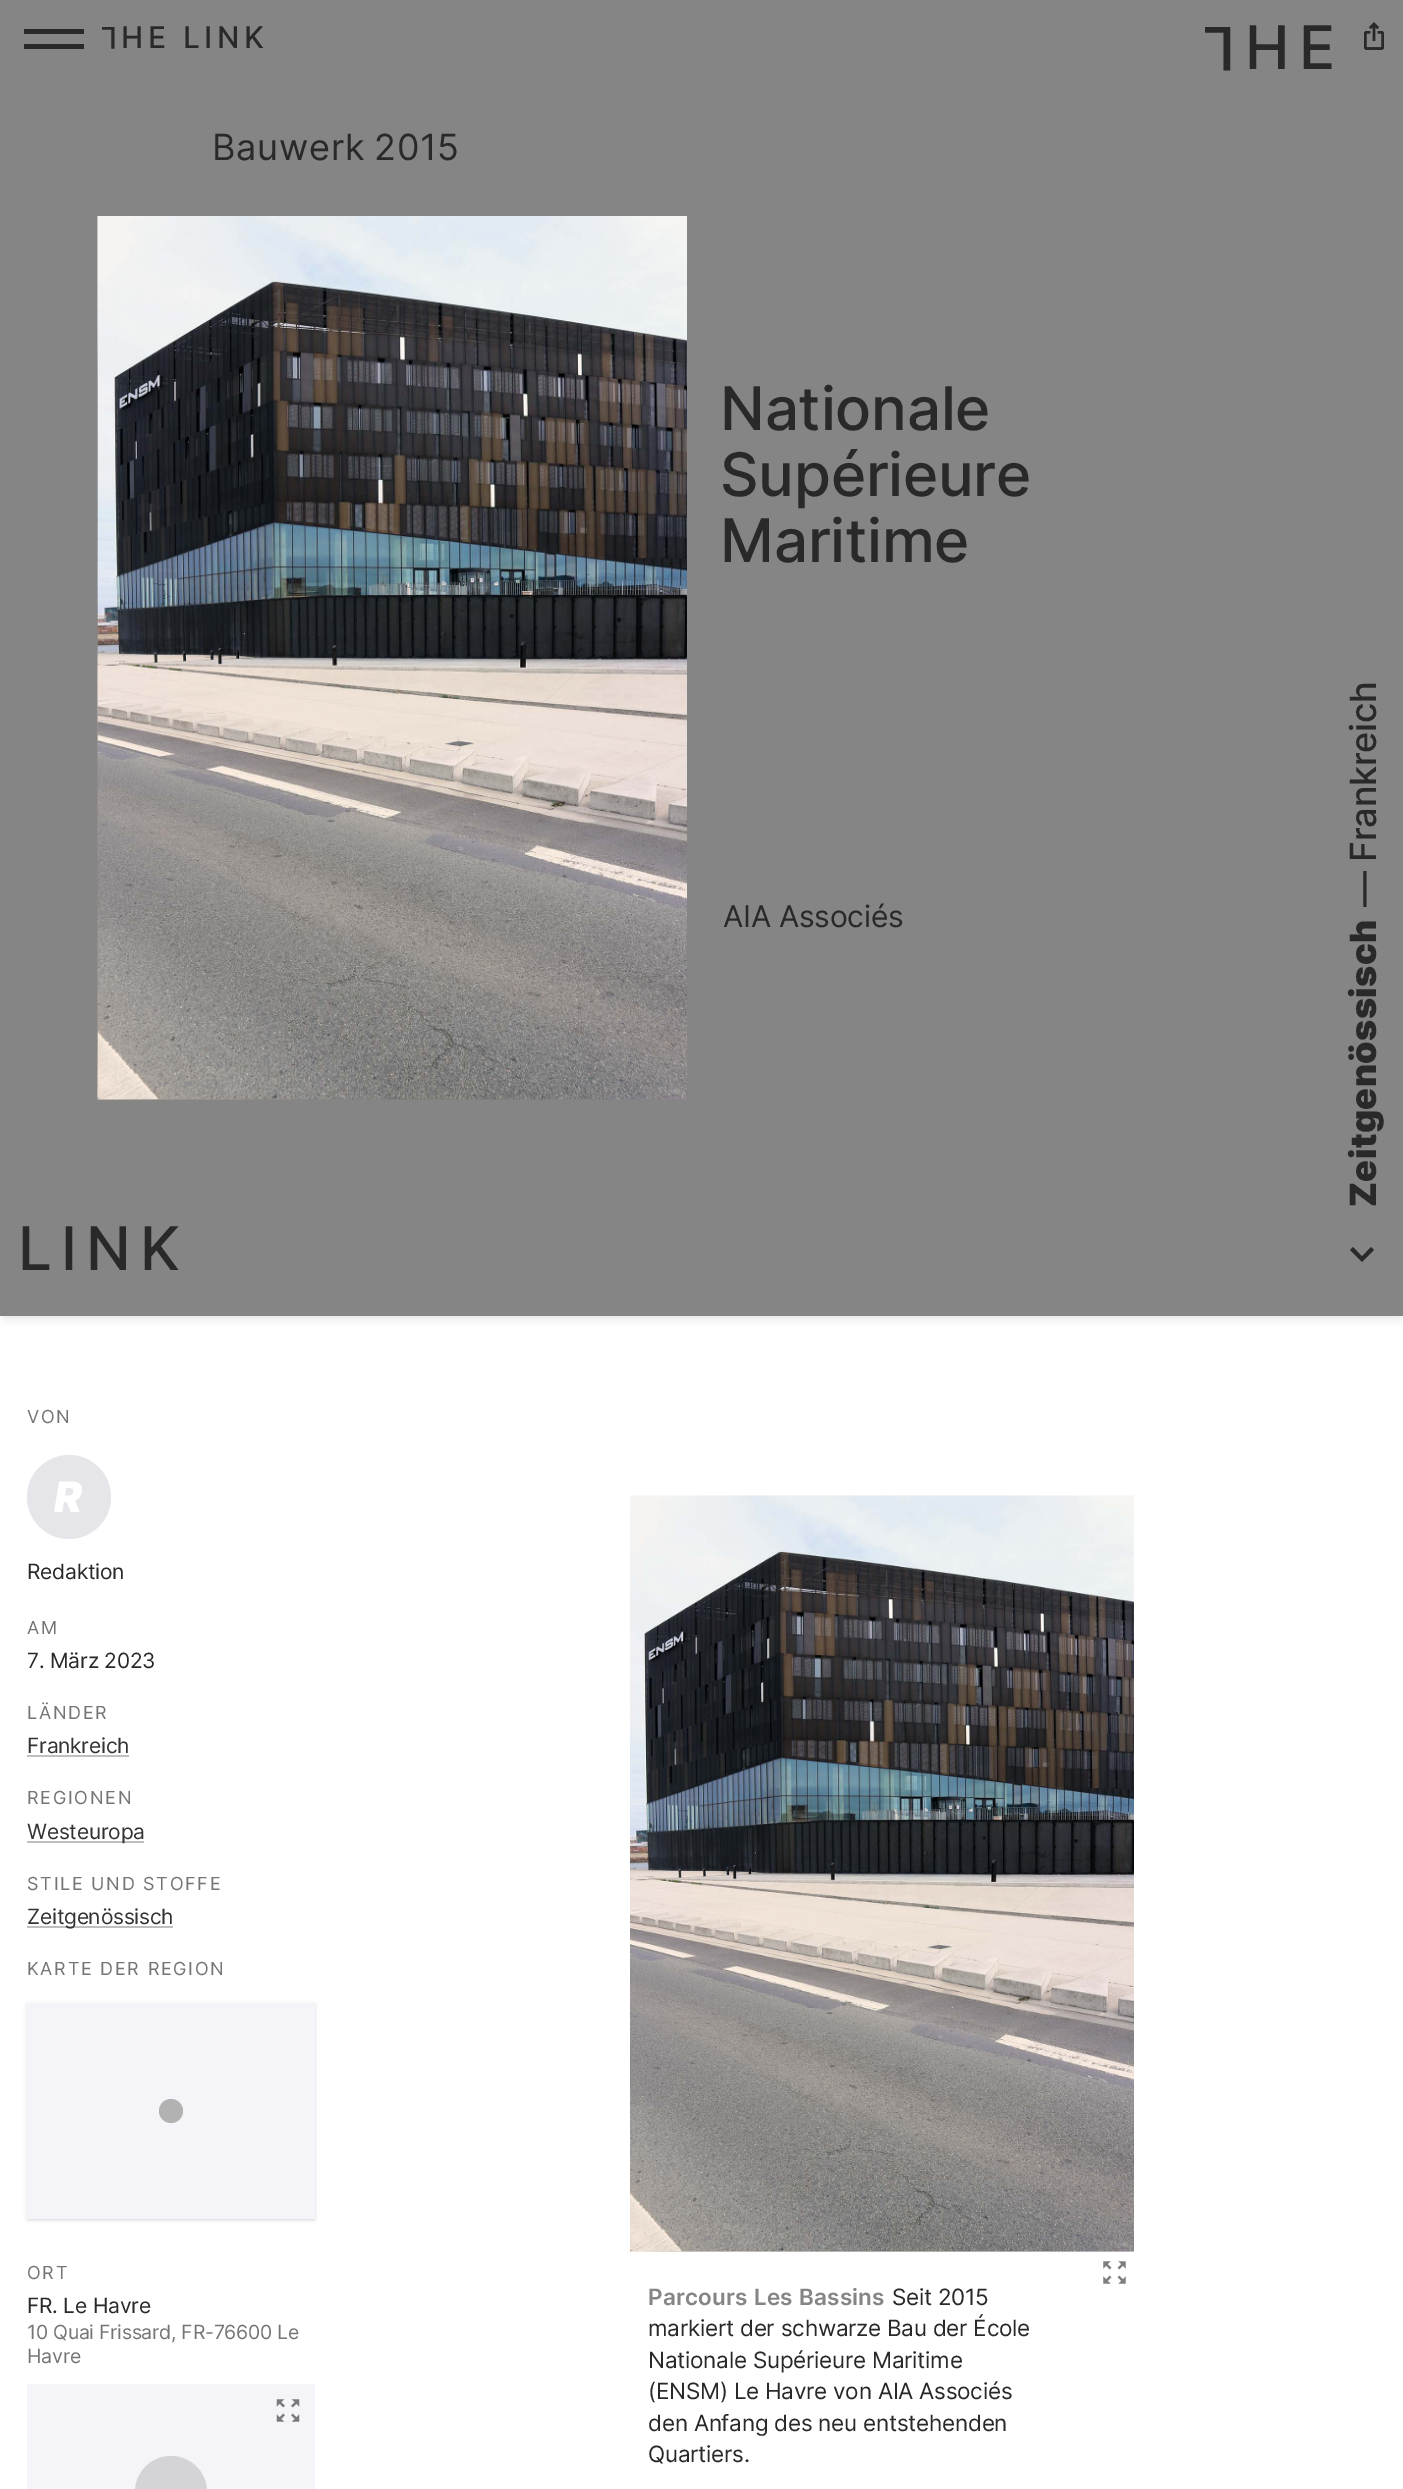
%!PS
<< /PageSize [1403 2489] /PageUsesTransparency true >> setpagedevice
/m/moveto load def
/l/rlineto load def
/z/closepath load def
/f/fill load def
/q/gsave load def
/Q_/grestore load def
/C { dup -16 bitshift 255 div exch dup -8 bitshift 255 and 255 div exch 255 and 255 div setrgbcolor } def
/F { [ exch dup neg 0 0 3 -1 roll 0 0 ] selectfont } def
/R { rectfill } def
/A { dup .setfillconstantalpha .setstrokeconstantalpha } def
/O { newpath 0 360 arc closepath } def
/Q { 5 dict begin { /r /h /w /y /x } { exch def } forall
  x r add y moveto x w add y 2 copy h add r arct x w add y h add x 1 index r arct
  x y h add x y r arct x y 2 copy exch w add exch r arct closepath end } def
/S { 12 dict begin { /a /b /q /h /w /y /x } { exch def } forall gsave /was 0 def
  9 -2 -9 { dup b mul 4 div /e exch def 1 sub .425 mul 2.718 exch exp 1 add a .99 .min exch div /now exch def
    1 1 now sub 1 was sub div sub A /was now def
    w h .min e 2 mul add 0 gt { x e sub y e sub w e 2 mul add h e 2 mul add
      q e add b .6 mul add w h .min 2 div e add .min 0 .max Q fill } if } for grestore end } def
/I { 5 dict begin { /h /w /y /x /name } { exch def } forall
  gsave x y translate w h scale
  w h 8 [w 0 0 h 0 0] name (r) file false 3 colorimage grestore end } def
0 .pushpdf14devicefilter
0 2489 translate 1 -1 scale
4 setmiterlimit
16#FFFFFF C
0 0 1403 2489 R
16#000000 C
2 1103 1401 213 0 1.5 .07 S
3 1110 1398 212 0 4 .05 S
16#868585 C
0 0 1403 1316 R
(2.rgb) 1364 22 20 28 I
(1.rgb) 1364 22 20 28 I
q
1205 18 30 60 rectclip
/Inter-Medium 60 F
16#292929 C
q 1235 27 translate 180 rotate 0 0 m 9 0 (L) ashow Q_
Q_
/Inter-Medium 60 F
16#292929 C
1245 69 m 9 0 (HE) ashow
18 1270 m 9 0 (LINK) ashow
/Inter-Regular 36 F
212 160 m .75 0 (Bauwerk) ashow
374 160 m .75 0 (2015) ashow
/Inter-Medium 60 F
720 430 m -.25 0 (Nationale) ashow
720 496 m -.25 0 (Supérieure) ashow
720 562 m -.25 0 (Maritime) ashow
/Inter-Regular 30 F
723 927 m -.25 0 (AIA Associés) ashow
(3.rgb) 97 216 590 884 I
(4.rgb) 97 216 590 884 I
/Inter-Medium 36 F
q 1376 862 translate -90 rotate 0 0 m -.25 0 (Frankreich) ashow Q_
q 1376 907 translate -90 rotate 0 0 m -.25 0 (—) ashow Q_
/Inter-Black 36 F
q 1376 1207 translate -90 rotate 0 0 m .4 0 (Zeitgenössisch) ashow Q_
1353 1247 m 9 9.5 l 9 -9.5 l 3 3 l -12 12 l -12 -12 l z f
/Inter-Regular 18 F
16#757575 C
27 1423 m 1.75 0 (VON) ashow
16#E6E6EA C
69 1497 42 O f
/Inter-BlackItalic 42 F
16#FFFFFF C
54 1512 m 2 0 (R) ashow
/Inter-Regular 21 F
16#292929 C
27 1579 m -.25 0 (Redaktion) ashow
/Inter-Regular 18 F
16#757575 C
27 1634 m 1.75 0 (AM) ashow
/Inter-Regular 21 F
16#292929 C
27 1668 m -.25 0 (7. März 2023) ashow
/Inter-Regular 18 F
16#757575 C
27 1719 m 1.75 0 (LÄNDER) ashow
/Inter-Regular 21 F
16#333333 C
27 1753 m -.25 0 (Frankreich) ashow
16#BFBFBF C
27 1755 102 2 R
/Inter-Regular 18 F
16#757575 C
27 1804 m 1.75 0 (REGIONEN) ashow
16#BFBFBF C
27 1841 117 2 R
/Inter-Regular 21 F
16#333333 C
27 1839 m -.25 0 (Westeuropa) ashow
/Inter-Regular 18 F
16#757575 C
27 1890 m 1.75 0 (STILE UND STOFFE) ashow
16#BFBFBF C
27 1926 146 2 R
/Inter-Regular 21 F
16#333333 C
27 1924 m -.25 0 (Zeitgenössisch) ashow
/Inter-Regular 18 F
16#757575 C
27 1975 m 1.75 0 (KARTE DER REGION) ashow
16#000000 C
29 2006 285 213 0 1.5 .1 S
27 2004 288 216 0 2 .1 S
16#F5F5F9 C
27 2003 288 216 R
16#B2B2B3 C
171 2111 12 O f
16#757575 C
27 2279 m 1.75 0 (ORT) ashow
/Inter-Regular 21 F
16#292929 C
27 2313 m -.25 0 (FR. Le Havre) ashow
/Inter-Regular 19.5 F
16#757575 C
27 2339 m -.25 0 (10 Quai Frissard, FR-76600 Le) ashow
27 2363 m -.25 0 (Havre) ashow
16#F5F5F9 C
27 2384 288 105 R
(5.rgb) 276 2399 24 23 I
16#D4D3D6 C
135 2456 72 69 36 Q f
16#FAFAFA C
630 2251 504 1 R
(6.rgb) 630 1495 504 757 I
(7.rgb) 630 1495 504 757 I
(8.rgb) 1103 2261 23 23 I
/Inter-SemiBold 22.5 F
16#868585 C
648 2305 m .25 0 (Parcours Les Bassins) ashow
/Inter-Regular 22.5 F
16#292929 C
892 2305 m -.25 0 (Seit 2015) ashow
648 2336 m -.25 0 (markiert der schwarze Bau der École) ashow
648 2368 m -.25 0 (Nationale Supérieure Maritime) ashow
648 2399 m -.25 0 (\(ENSM\) Le Havre von AIA Associés) ashow
648 2431 m -.25 0 (den Anfang des neu entstehenden) ashow
648 2462 m -.25 0 (Quartiers.) ashow
24 29 60 5 R
24 44 60 5 R
q
102 23 15 30 rectclip
/Inter-Medium 30 F
q 117 27 translate 180 rotate 0 0 m 4.5 0 (L) ashow Q_
Q_
/Inter-Medium 30 F
121 48 m 4.5 0 (HE LINK) ashow
.poppdf14devicefilter showpage
